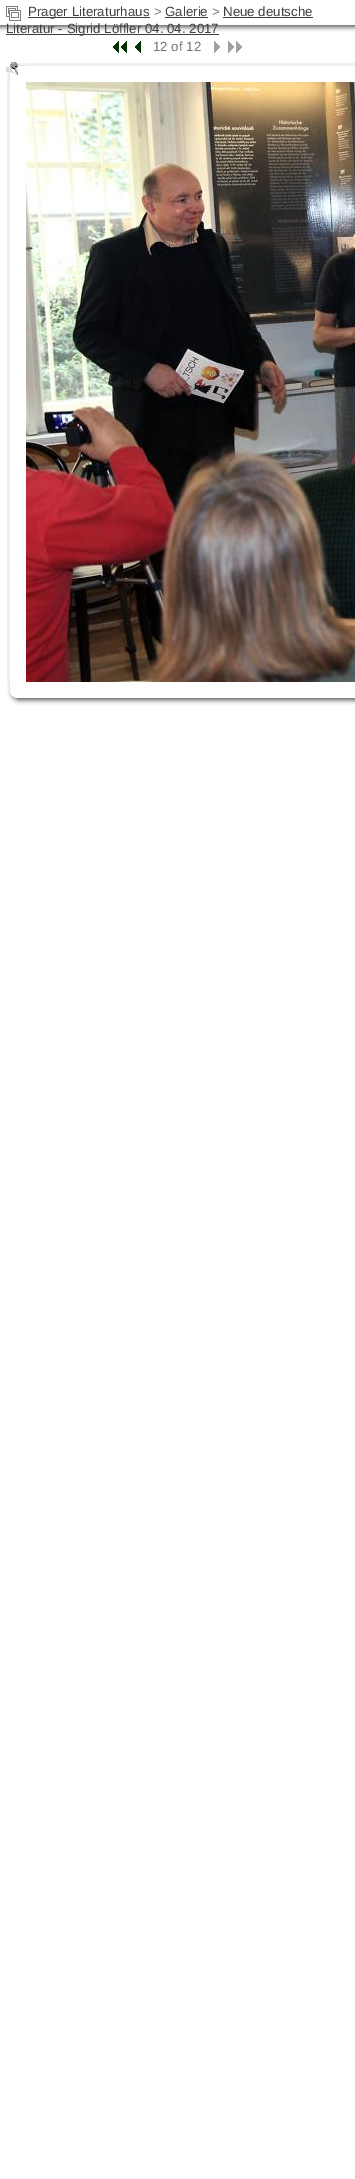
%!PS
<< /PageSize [355 2179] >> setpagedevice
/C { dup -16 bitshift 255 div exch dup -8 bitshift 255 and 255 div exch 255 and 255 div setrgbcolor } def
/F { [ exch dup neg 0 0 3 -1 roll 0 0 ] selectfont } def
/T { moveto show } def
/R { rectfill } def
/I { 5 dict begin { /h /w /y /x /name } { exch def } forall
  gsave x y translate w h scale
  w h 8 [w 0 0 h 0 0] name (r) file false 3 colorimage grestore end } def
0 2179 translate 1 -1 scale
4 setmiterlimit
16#FFFFFF C
0 0 355 2179 R
(1.rgb) 0 25 355 7 I
(2.rgb) 6 6 15 15 I
16#404040 C
28 17 122 1 R
/LiberationSans-Regular 13.3 F
(Prager Literaturhaus) 28 16 T
16#737373 C
(>) 154 16 T
16#404040 C
(Galerie) 165 16 T
165 17 43 1 R
16#737373 C
(>) 212 16 T
16#404040 C
(Neue deutsche) 223 16 T
223 17 90 1 R
6 34 213 1 R
(Literatur - Sigrid Löffler 04. 04. 2017) 6 33 T
(3.rgb) 113 41 14 12 I
(4.rgb) 135 41 6 12 I
16#737373 C
(12 of 12) 153 51 T
(5.rgb) 214 41 6 12 I
(6.rgb) 228 41 14 12 I
(7.rgb) 5 61 21 21 I
16#EFEFEF C
26 63 329 3 R
7 82 3 600 R
(8.rgb) 26 82 329 600 I
(9.rgb) 7 682 19 23 I
(10.rgb) 26 698 329 7 I
showpage
